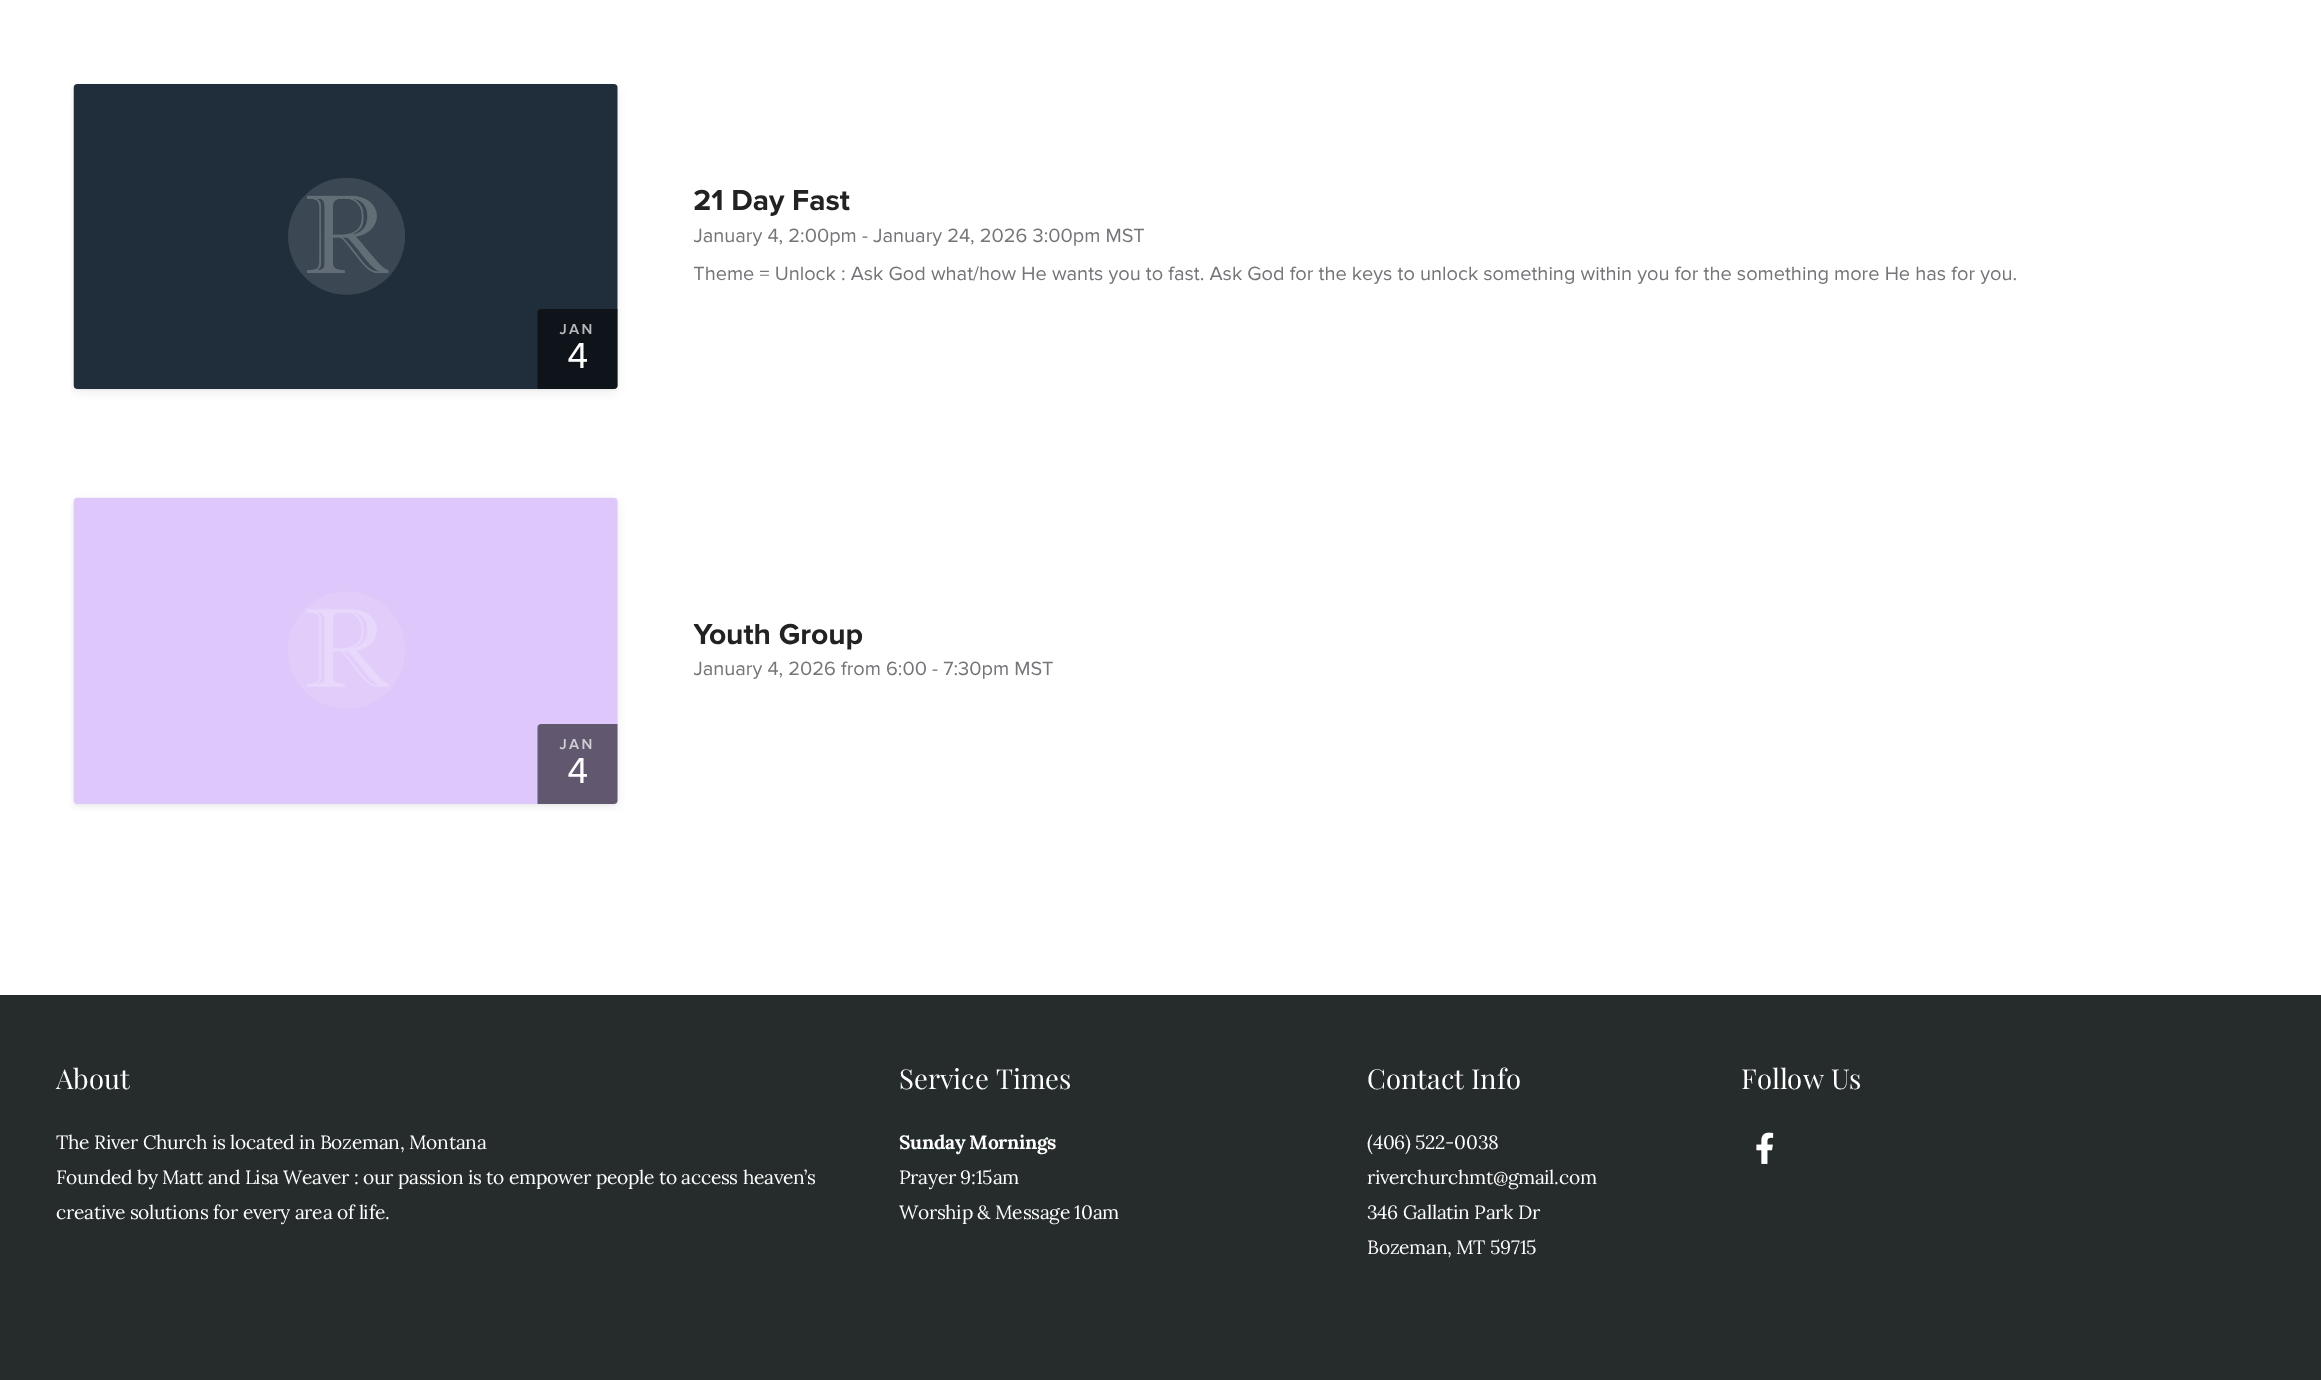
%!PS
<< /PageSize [2321 1380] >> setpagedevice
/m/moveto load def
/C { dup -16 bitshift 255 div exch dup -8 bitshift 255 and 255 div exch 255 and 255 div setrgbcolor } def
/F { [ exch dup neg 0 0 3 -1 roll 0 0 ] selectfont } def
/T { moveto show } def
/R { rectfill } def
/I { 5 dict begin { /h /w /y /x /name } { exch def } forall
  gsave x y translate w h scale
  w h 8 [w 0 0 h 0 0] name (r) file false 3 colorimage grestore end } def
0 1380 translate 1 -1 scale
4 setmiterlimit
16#FFFFFF C
0 0 2321 1380 R
(1.rgb) 70 83 1946 728 I
16#262B2C C
0 995 2321 385 R
/PlayfairDisplay-Regular 27.5 F
16#FFFFFF C
(About) 56 1089 T
/Lora-Regular 19.25 F
56 1149 m -.35 0 (The River Church is located in Bozeman, Montana) ashow
56 1184 m -.35 0 (Founded by Matt and Lisa Weaver : our passion is to empower people to access heaven’s) ashow
56 1219 m -.35 0 (creative solutions for every area of life.) ashow
/PlayfairDisplay-Regular 27.5 F
(Service Times) 899 1089 T
/Lora-Bold 19.25 F
899 1149 m -.35 0 (Sunday Mornings) ashow
/Lora-Regular 19.25 F
899 1184 m -.35 0 (Prayer 9:15am) ashow
899 1219 m -.35 0 (Worship & Message 10am) ashow
/PlayfairDisplay-Regular 27.5 F
(Contact Info) 1367 1089 T
/Lora-Regular 19.25 F
1367 1149 m -.35 0 (\(406\) 522-0038) ashow
1367 1184 m -.35 0 (riverchurchmt@gmail.com) ashow
1367 1219 m -.35 0 (346 Gallatin Park Dr) ashow
1367 1254 m -.35 0 (Bozeman, MT 59715) ashow
/PlayfairDisplay-Regular 27.5 F
(Follow Us) 1741 1089 T
(2.rgb) 1756 1132 18 32 I
showpage
